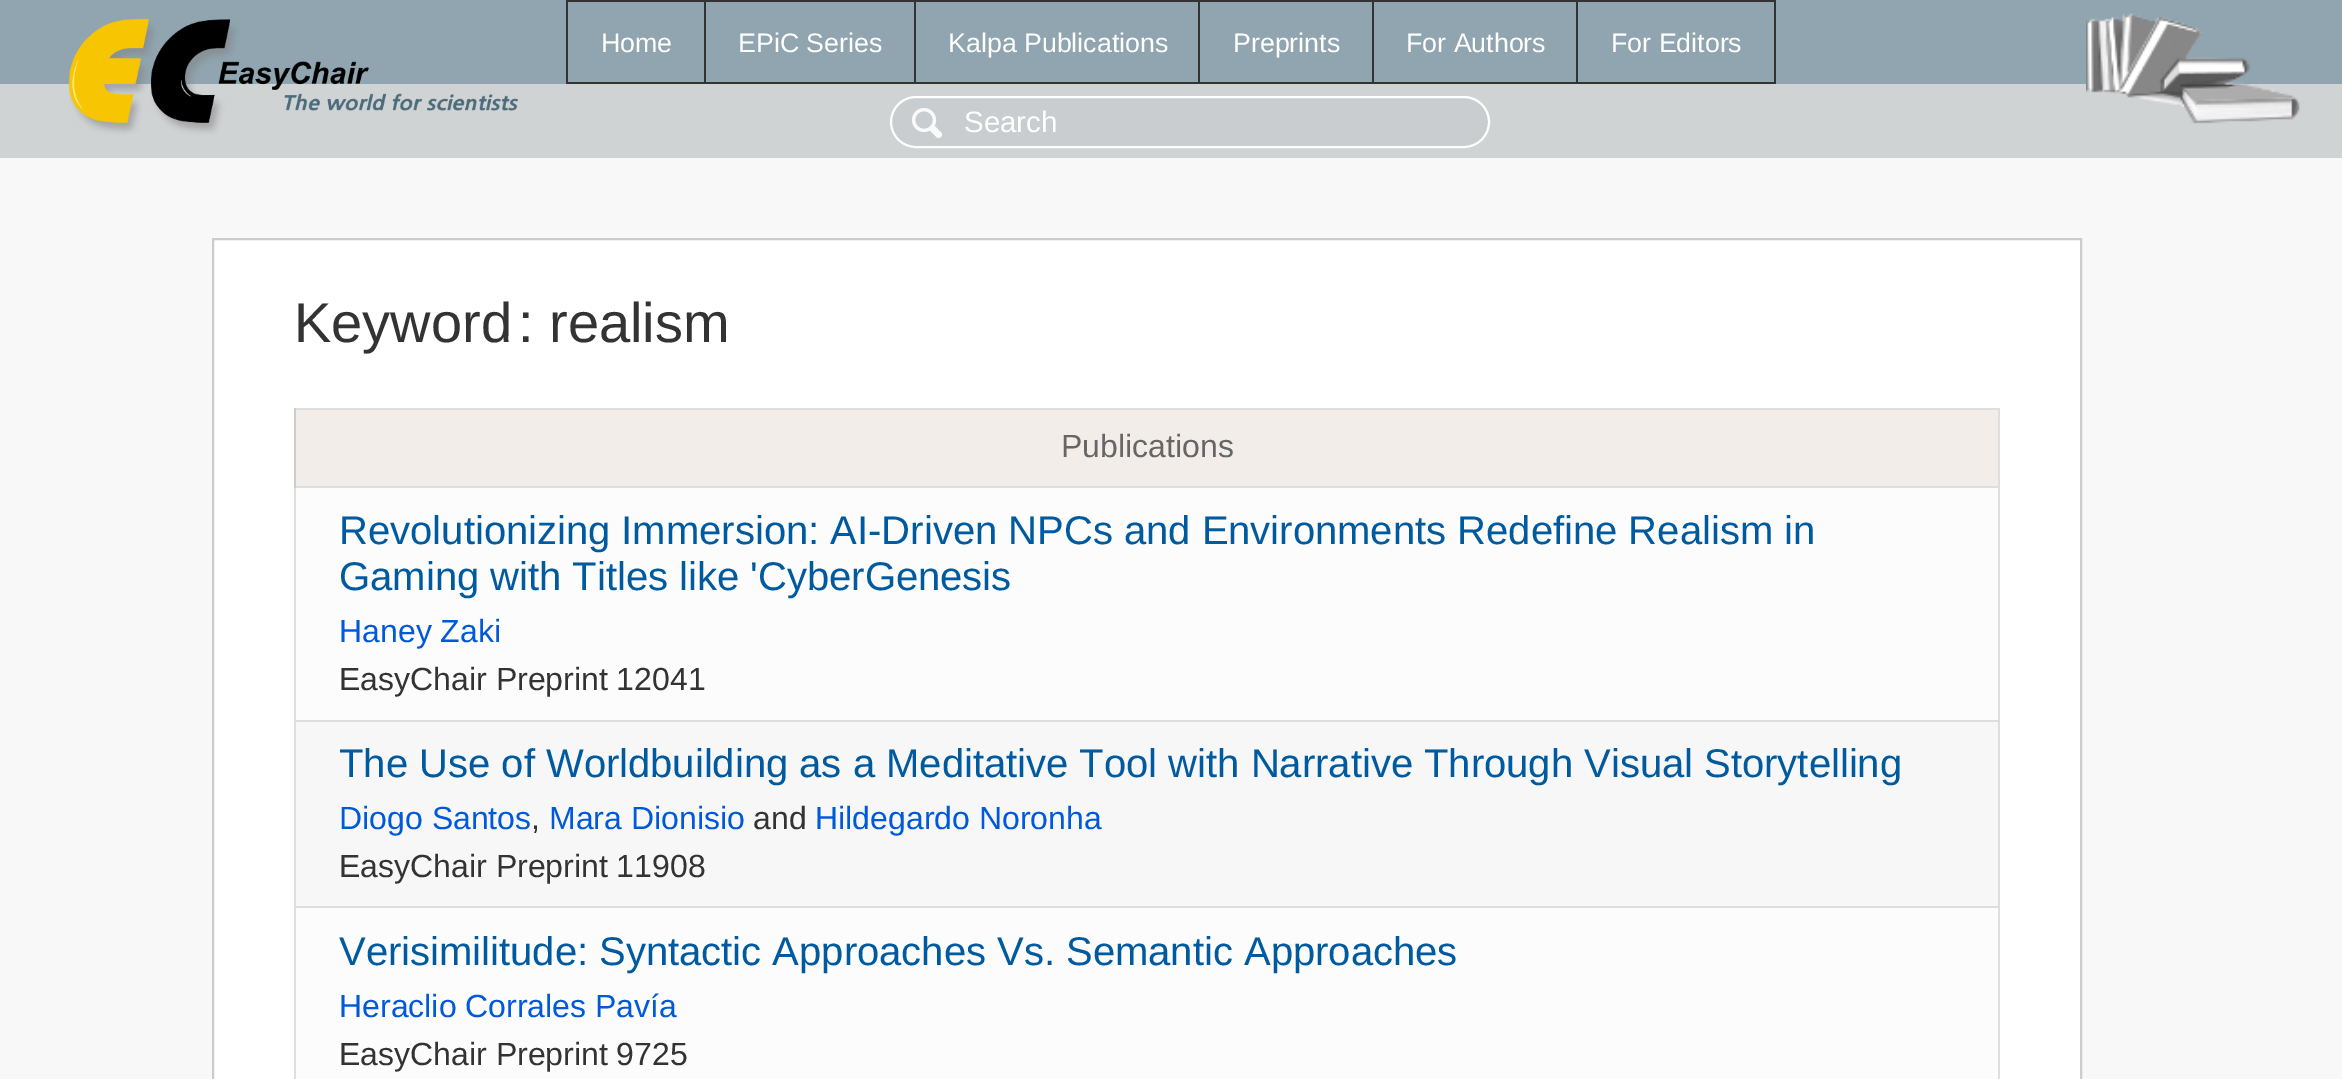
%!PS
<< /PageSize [2342 1079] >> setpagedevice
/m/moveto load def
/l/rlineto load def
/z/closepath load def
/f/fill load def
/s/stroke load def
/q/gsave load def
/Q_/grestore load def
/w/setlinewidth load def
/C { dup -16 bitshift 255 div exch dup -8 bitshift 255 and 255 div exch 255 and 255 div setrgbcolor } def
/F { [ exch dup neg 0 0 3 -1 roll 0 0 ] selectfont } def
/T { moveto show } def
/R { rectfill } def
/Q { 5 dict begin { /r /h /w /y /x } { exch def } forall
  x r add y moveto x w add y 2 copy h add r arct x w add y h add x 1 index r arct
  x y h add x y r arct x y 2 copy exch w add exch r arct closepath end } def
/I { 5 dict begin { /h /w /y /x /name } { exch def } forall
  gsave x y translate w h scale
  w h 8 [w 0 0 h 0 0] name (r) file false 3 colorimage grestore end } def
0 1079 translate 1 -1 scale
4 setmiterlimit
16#90A5B0 C
0 0 2342 1079 R
16#D0D3D4 C
0 86 2340 70 R
0 84 2342 2 R
(1.rgb) 68 18 450 117 I
16#333333 C
1576 0 200 2 R
1774 0 2 84 R
1576 82 200 2 R
1576 0 2 84 R
1372 0 206 2 R
1372 82 206 2 R
1372 0 2 84 R
1198 0 176 2 R
1198 82 176 2 R
1198 0 2 84 R
914 0 286 2 R
914 82 286 2 R
914 0 2 84 R
704 0 212 2 R
704 82 212 2 R
704 0 2 84 R
566 0 140 2 R
566 82 140 2 R
566 0 2 84 R
/LiberationSans-Regular 26.75 F
16#FFFFFF C
(Home) 601 52 T
(EPiC Series) 738 52 T
(Kalpa Publications) 948 52 T
(Preprints) 1233 52 T
(For Authors) 1406 52 T
(For Editors) 1611 52 T
(2.rgb) 2086 13 214 111 I
16#D0D3D4 C
2340 84 2 74 R
0 156 2342 2 R
16#C9CDD0 C
890 96 600 52 26 Q f
(3.rgb) 912 108 30 30 I
16#FFFFFF C
2 w
891 97 598 50 25 Q s
/LiberationSans-Regular 29.5 F
(Search) 964 132 T
16#F8F8F8 C
0 158 2342 921 R
16#FFFFFF C
213 239 m 1868 0 l 0 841 l -1868 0 l z q f Q_
16#CCCCCC C
s
/LiberationSans-Regular 56 F
16#333333 C
(Keyword) 294 342 T
(:) 518 342 T
(realism) 549 342 T
16#DEDEDE C
294 408 1706 2 R
1998 408 2 671 R
294 488 2 591 R
16#F2EDE9 C
296 410 1702 76 R
16#DEDEDE C
294 486 1706 2 R
16#CCCCCC C
294 408 2 80 R
/LiberationSans-Regular 32 F
16#666666 C
(Publications) 1061 457 T
16#FCFCFC C
296 488 1702 232 R
16#DEDEDE C
294 720 1706 2 R
/LiberationSans-Regular 40 F
16#005A9F C
(Revolutionizing Immersion: AI-Driven NPCs and Environments Redefine Realism in) 339 544 T
(Gaming with Titles like 'CyberGenesis) 339 590 T
/LiberationSans-Regular 32 F
16#0059DB C
(Haney Zaki) 339 642 T
16#333333 C
(EasyChair Preprint 12041) 339 690 T
16#F7F7F7 C
296 722 1702 184 R
16#DEDEDE C
294 906 1706 2 R
/LiberationSans-Regular 40 F
16#005A9F C
(The Use of Worldbuilding as a Meditative Tool with Narrative Through Visual Storytelling) 339 777 T
/LiberationSans-Regular 32 F
16#0059DB C
(Diogo Santos) 339 829 T
16#333333 C
(,) 531 829 T
16#0059DB C
(Mara Dionisio) 549 829 T
16#333333 C
(and) 753 829 T
16#0059DB C
(Hildegardo Noronha) 815 829 T
16#333333 C
(EasyChair Preprint 11908) 339 877 T
16#FCFCFC C
296 908 1702 171 R
/LiberationSans-Regular 40 F
16#005A9F C
(Verisimilitude: Syntactic Approaches Vs. Semantic Approaches) 339 965 T
/LiberationSans-Regular 32 F
16#0059DB C
(Heraclio Corrales Pavía) 339 1017 T
16#333333 C
(EasyChair Preprint 9725) 339 1065 T
showpage
